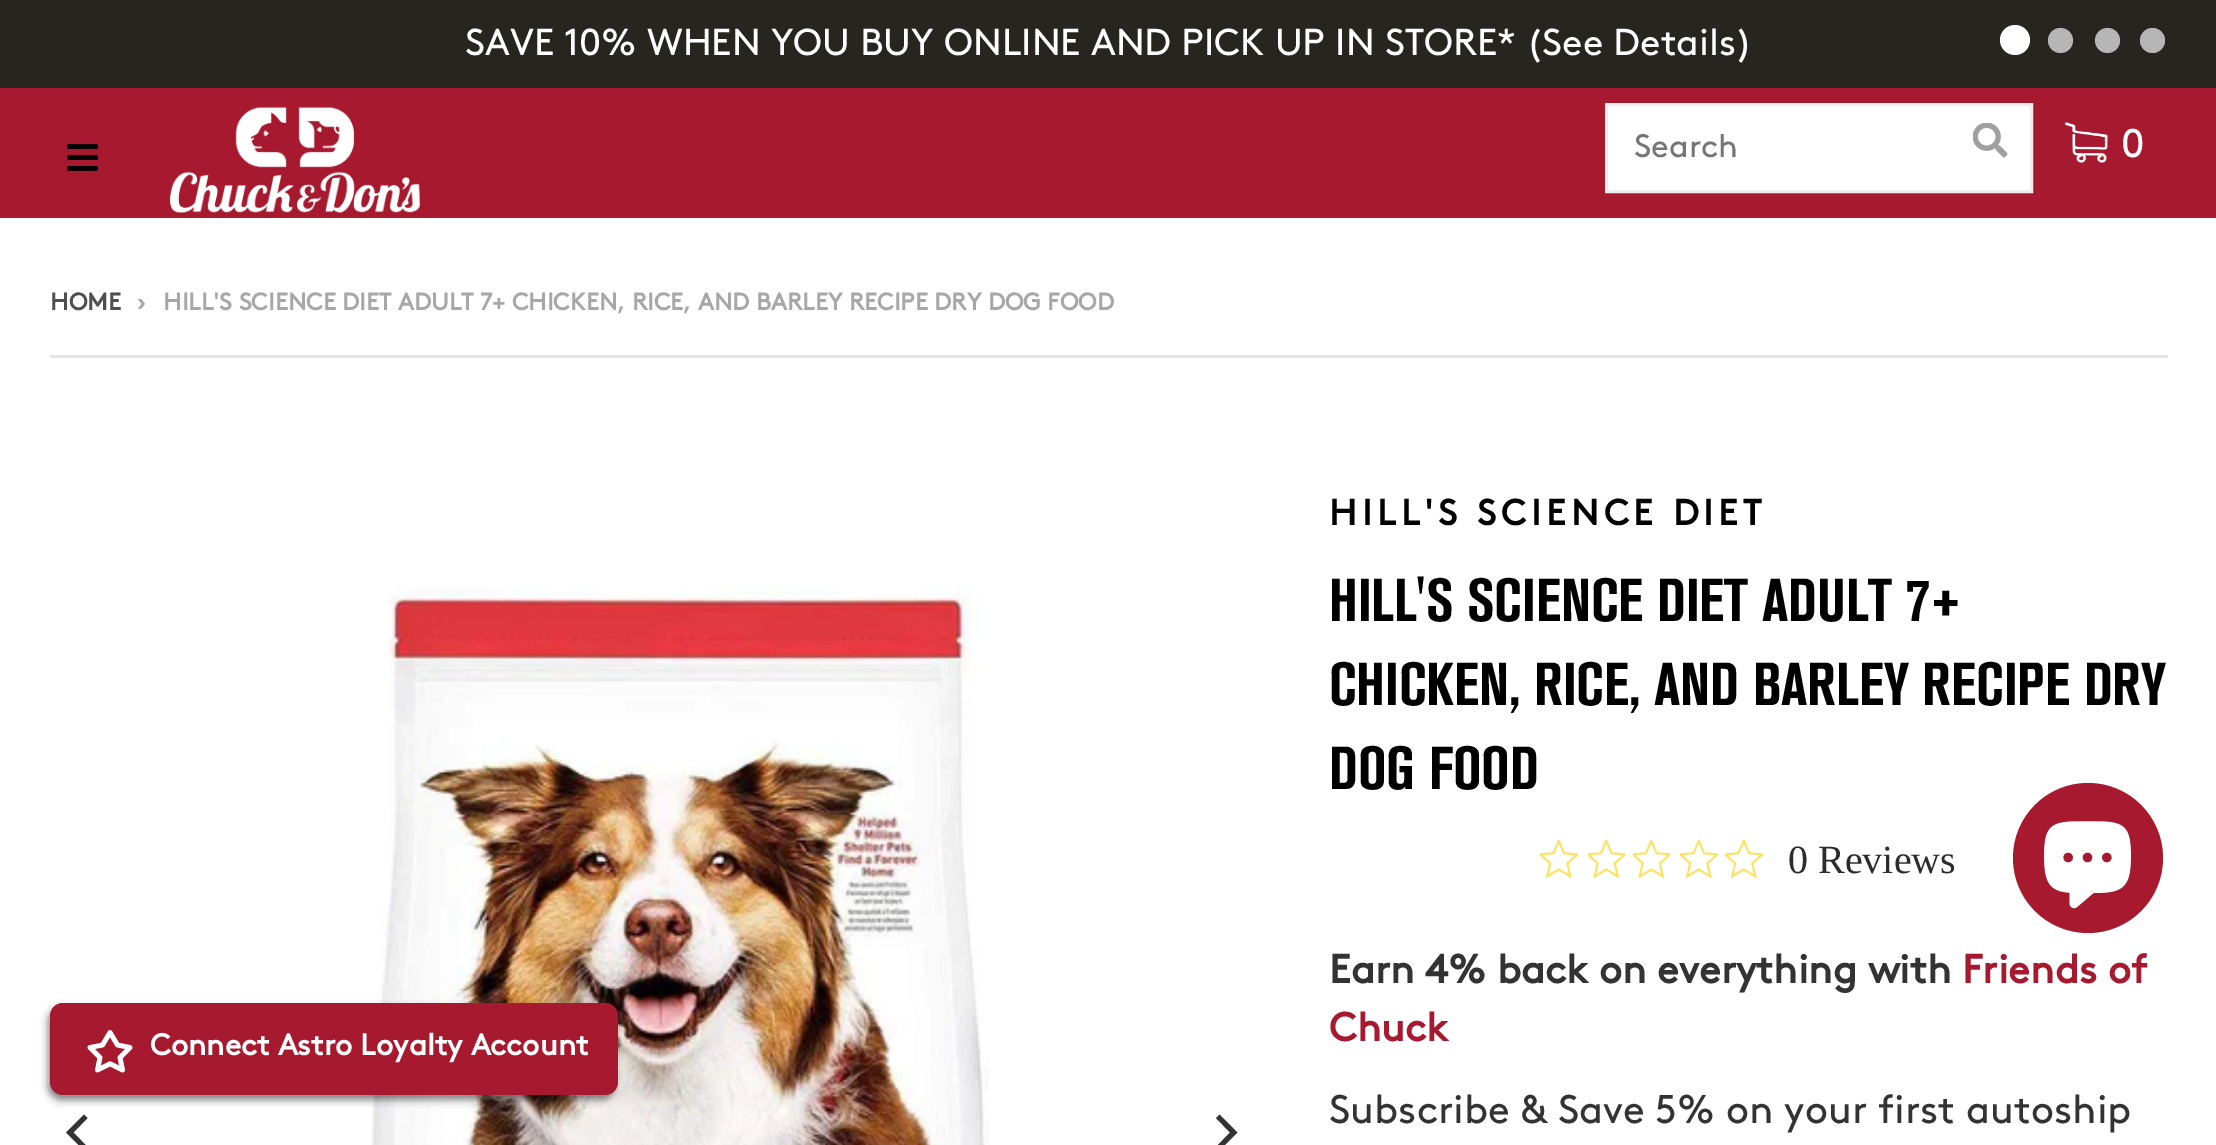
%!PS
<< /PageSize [2216 1145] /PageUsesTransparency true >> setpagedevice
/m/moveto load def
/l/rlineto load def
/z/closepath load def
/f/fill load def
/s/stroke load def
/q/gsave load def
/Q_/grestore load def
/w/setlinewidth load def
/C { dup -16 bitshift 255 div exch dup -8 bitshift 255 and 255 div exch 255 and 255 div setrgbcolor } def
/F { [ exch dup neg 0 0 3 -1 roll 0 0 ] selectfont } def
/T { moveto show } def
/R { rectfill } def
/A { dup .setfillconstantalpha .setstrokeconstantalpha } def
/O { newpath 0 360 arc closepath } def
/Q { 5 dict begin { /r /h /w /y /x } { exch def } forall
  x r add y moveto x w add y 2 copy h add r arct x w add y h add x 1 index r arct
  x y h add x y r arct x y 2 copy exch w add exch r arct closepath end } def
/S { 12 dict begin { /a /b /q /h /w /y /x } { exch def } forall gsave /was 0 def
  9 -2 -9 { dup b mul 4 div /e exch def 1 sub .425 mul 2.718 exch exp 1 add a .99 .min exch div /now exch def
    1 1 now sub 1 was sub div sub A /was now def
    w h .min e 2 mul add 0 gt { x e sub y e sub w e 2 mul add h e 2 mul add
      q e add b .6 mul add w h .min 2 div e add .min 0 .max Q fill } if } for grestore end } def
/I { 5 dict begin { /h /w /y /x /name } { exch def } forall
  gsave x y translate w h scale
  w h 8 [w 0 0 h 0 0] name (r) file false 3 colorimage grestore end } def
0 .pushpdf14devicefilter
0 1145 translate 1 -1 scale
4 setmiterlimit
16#FFFFFF C
0 0 2216 1145 R
16#27251F C
0 0 2216 88 R
/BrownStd-Regular 37.5 F
16#FFFFFF C
(SAVE 10% WHEN YOU BUY ONLINE AND PICK UP IN STORE* \(See Details\)) 465 55 T
2015 40 15 O f
16#B6B6B6 C
2060.5 40.5 12.5 O f
2107.5 40.5 12.5 O f
2152.5 40.5 12.5 O f
16#A6192E C
0 88 2216 130 R
(1.rgb) 67 144 31 27 I
(2.rgb) 170 106 250 107 I
16#FFFFFF C
1606.5 104.5 m 425 0 l 0 87 l -425 0 l z q f Q_
16#EEEEEE C
3 w
s
/BrownStd-Regular 32.5 F
16#757575 C
(Search) 1634 157 T
(3.rgb) 1973 123 35 35 I
(4.rgb) 2065 122 43 41 I
/BrownStd-Regular 40 F
16#FFFFFF C
2121 157 m 2 0 (0) ashow
/BrownStd-Bold 24.05 F
16#4F4F4F C
(HOME) 50 310 T
16#A7A7A7 C
(›) 137 310 T
163 310 m -.1 0 32 (HILL'S SCIENCE DIET ADULT 7+ CHICKEN, RICE, AND BARLEY RECIPE DRY DOG FOOD) widthshow
16#E5E5E5 C
50 355 2118 3 R
16#333333 C
66 1132.5 m 18 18 l 3.5 -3.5 l -14 -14.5 l 14 -14.5 l -3.5 -3.5 l z f
(5.rgb) 371 584 619 561 I
1237.5 1132.5 m -18 -18 l -3.5 3.5 l 14 14.5 l -14 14.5 l 3.5 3.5 l z f
/BrownStd-Bold 36 F
16#000000 C
1329 525 m 5 0 (HILL'S SCIENCE DIET) ashow
/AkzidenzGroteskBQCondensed-Bold 60 F
(HILL'S SCIENCE DIET ADULT 7+) 1329 621 T
(CHICKEN, RICE, AND BARLEY RECIPE DRY) 1329 705 T
(DOG FOOD) 1329 789 T
(6.rgb) 1540 840 38 38 I
(7.rgb) 1588 840 37 38 I
(7.rgb) 1633 840 37 38 I
(6.rgb) 1680 840 38 38 I
(6.rgb) 1725 840 38 38 I
/LiberationSerif-Regular 40 F
16#2C2C2C C
(0 Reviews) 1788 873 T
/BrownStd-Bold 40 F
16#333333 C
(Earn 4% back on everything with) 1329 983 T
16#A6192E C
(Friends of) 1962 983 T
(Chuck) 1329 1041 T
/BrownStd-Regular 40 F
16#333333 C
(Subscribe & Save 5% on your first autoship) 1329 1123 T
16#A6192E C
2088 858 75 O f
(8.rgb) 2044 821 87 88 I
16#000000 C
48 1008 567 92 13 4 .5 S
16#A6192E C
50 1003 568 92 13 Q f
(9.rgb) 87 1030 46 43 I
/BrownStd-Bold 30 F
16#FFFFFF C
(Connect Astro Loyalty Account) 150 1055 T
.poppdf14devicefilter showpage
